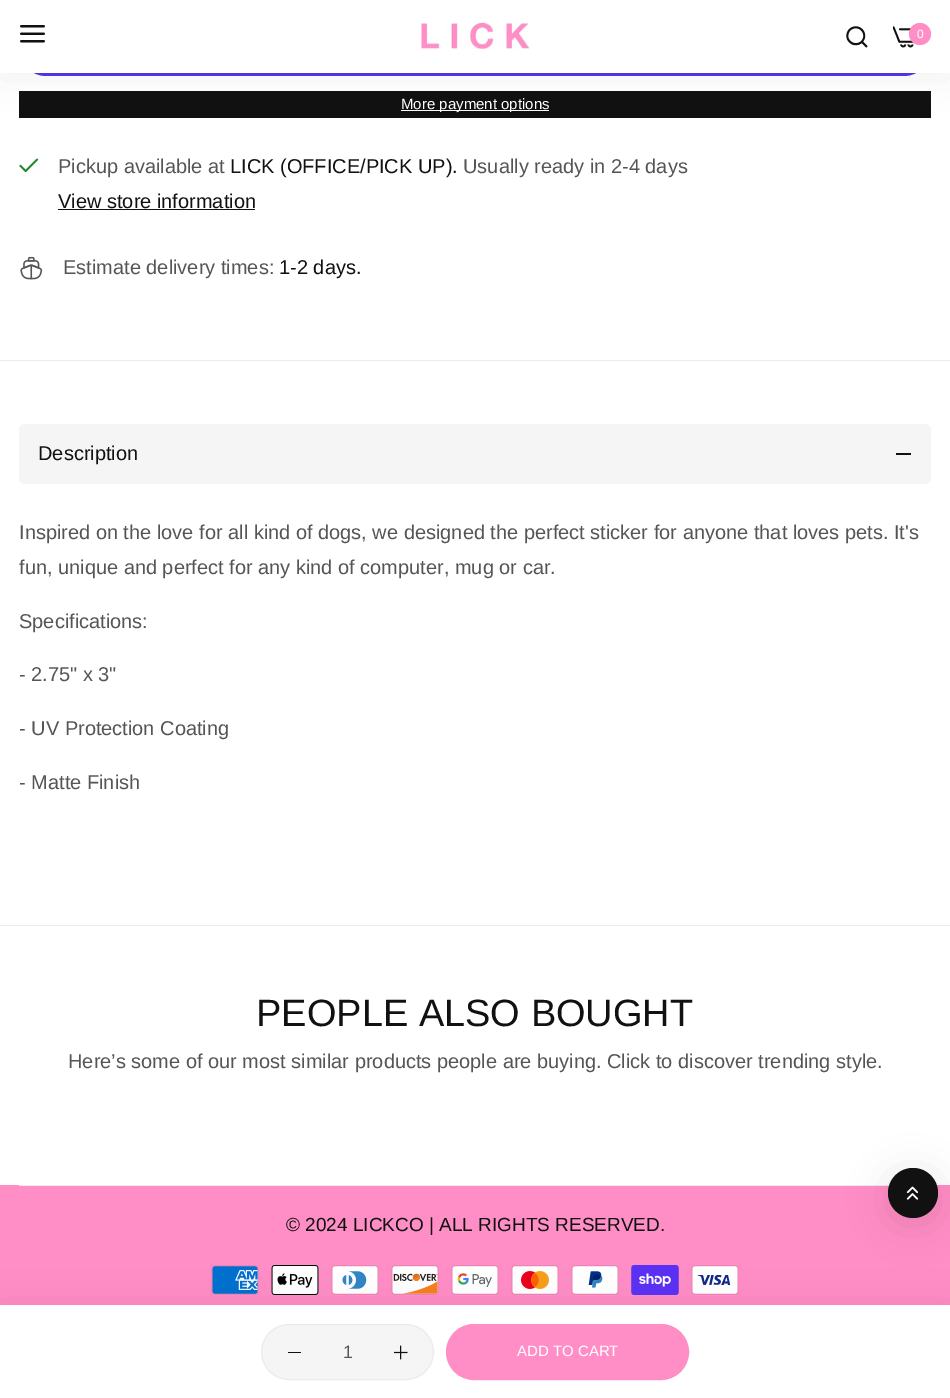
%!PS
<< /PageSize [950 1398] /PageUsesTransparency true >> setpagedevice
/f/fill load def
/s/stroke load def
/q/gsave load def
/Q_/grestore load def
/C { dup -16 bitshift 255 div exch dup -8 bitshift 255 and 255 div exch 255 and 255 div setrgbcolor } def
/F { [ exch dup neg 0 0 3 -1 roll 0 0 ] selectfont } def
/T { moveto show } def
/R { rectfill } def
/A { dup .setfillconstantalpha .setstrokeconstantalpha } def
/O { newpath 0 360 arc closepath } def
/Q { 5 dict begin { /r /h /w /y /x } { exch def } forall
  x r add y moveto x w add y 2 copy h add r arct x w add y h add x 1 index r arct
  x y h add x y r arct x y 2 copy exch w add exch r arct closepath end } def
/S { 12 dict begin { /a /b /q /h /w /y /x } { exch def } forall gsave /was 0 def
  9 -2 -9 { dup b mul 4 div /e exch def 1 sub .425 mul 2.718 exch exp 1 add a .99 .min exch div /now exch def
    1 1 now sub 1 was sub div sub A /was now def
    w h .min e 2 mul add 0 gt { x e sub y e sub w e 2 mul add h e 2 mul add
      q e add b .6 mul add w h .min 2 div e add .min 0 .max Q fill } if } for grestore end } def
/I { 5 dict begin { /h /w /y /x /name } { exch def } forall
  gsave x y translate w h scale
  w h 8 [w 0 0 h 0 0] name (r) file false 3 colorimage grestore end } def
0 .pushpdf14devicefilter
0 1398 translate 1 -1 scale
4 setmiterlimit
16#FFFFFF C
0 0 950 1398 R
16#5433EB C
19 21 912 55 27.5 Q f
16#111111 C
19 91 912 27 R
16#FFFFFF C
401 110 148 1 R
16#000000 C
0 6 950 73 0 19 .05 S
16#FFFFFF C
0 0 950 73 R
(1.rgb) 20 25 25 18 I
(2.rgb) 419 22 111 28 I
(3.rgb) 846 26 22 22 I
(4.rgb) 893 26 21 22 I
16#FF8EC6 C
920 34 11 O f
/LiberationSans-Regular 12 F
16#FFFFFF C
(0) 917 38 T
/LiberationSans-Regular 15 F
(More payment options) 401 109 T
(5.rgb) 19 158 20 15 I
/LiberationSans-Regular 20 F
16#555555 C
(Pickup available at) 58 173 T
16#111111 C
(LICK \(OFFICE/PICK UP\).) 230 173 T
16#555555 C
(Usually ready in 2-4 days) 463 173 T
16#111111 C
(View store information) 58 208 T
58 209 197 1 R
(6.rgb) 20 256 23 24 I
16#555555 C
(Estimate delivery times:) 63 274 T
16#111111 C
(1-2 days.) 279 274 T
16#FF8EC6 C
0 1185 950 120 R
(8.rgb) 211 1265 48 30 I
(9.rgb) 271 1265 48 30 I
(10.rgb) 331 1265 48 30 I
(11.rgb) 391 1265 48 30 I
(12.rgb) 451 1265 48 30 I
(13.rgb) 511 1265 48 30 I
(14.rgb) 571 1265 48 30 I
(15.rgb) 631 1265 48 30 I
(16.rgb) 691 1265 48 30 I
16#000000 C
0 1311 950 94 0 19 .08 S
16#FFFFFF C
0 1305 950 93 R
16#F5F5F5 C
261.5 1324.5 172 55 27.5 Q q f Q_
16#EBEBEB C
s
16#111111 C
288 1352 13 1 R
/LiberationSans-Regular 18 F
16#555555 C
(1) 343 1358 T
(7.rgb) 394 1345 14 15 I
16#FF8EC6 C
446.5 1324.5 242 55 27.5 Q q f Q_
s
/LiberationSans-Regular 15 F
16#FFFFFF C
(ADD TO CART) 517 1356 T
16#EBEBEB C
0 360 950 1 R
0 925 950 1 R
16#F5F5F5 C
19 424 912 60 6 Q f
/LiberationSans-Regular 20 F
16#111111 C
(Description) 38 460 T
896 453 15 2 R
16#555555 C
(Inspired on the love for all kind of dogs, we designed the perfect sticker for anyone that loves pets. It's) 19 539 T
(fun, unique and perfect for any kind of computer, mug or car.) 19 574 T
(Specifications:) 19 628 T
(- 2.75" x 3") 19 681 T
(- UV Protection Coating) 19 735 T
(- Matte Finish) 19 789 T
/LiberationSans-Regular 38 F
16#111111 C
(PEOPLE ALSO BOUGHT) 256 1026 T
/LiberationSans-Regular 20 F
16#555555 C
(Here’s some of our most similar products people are buying. Click to discover trending style.) 68 1068 T
16#EBEBEB C
19 1185 871 1 R
/LiberationSans-Regular 19 F
16#111111 C
(© 2024 LICKCO | ALL RIGHTS RESERVED.) 286 1231 T
16#000000 C
888 1174 50 50 25 19 .1 S
16#111111 C
913 1193 25 O f
(17.rgb) 906 1186 13 14 I
.poppdf14devicefilter showpage
